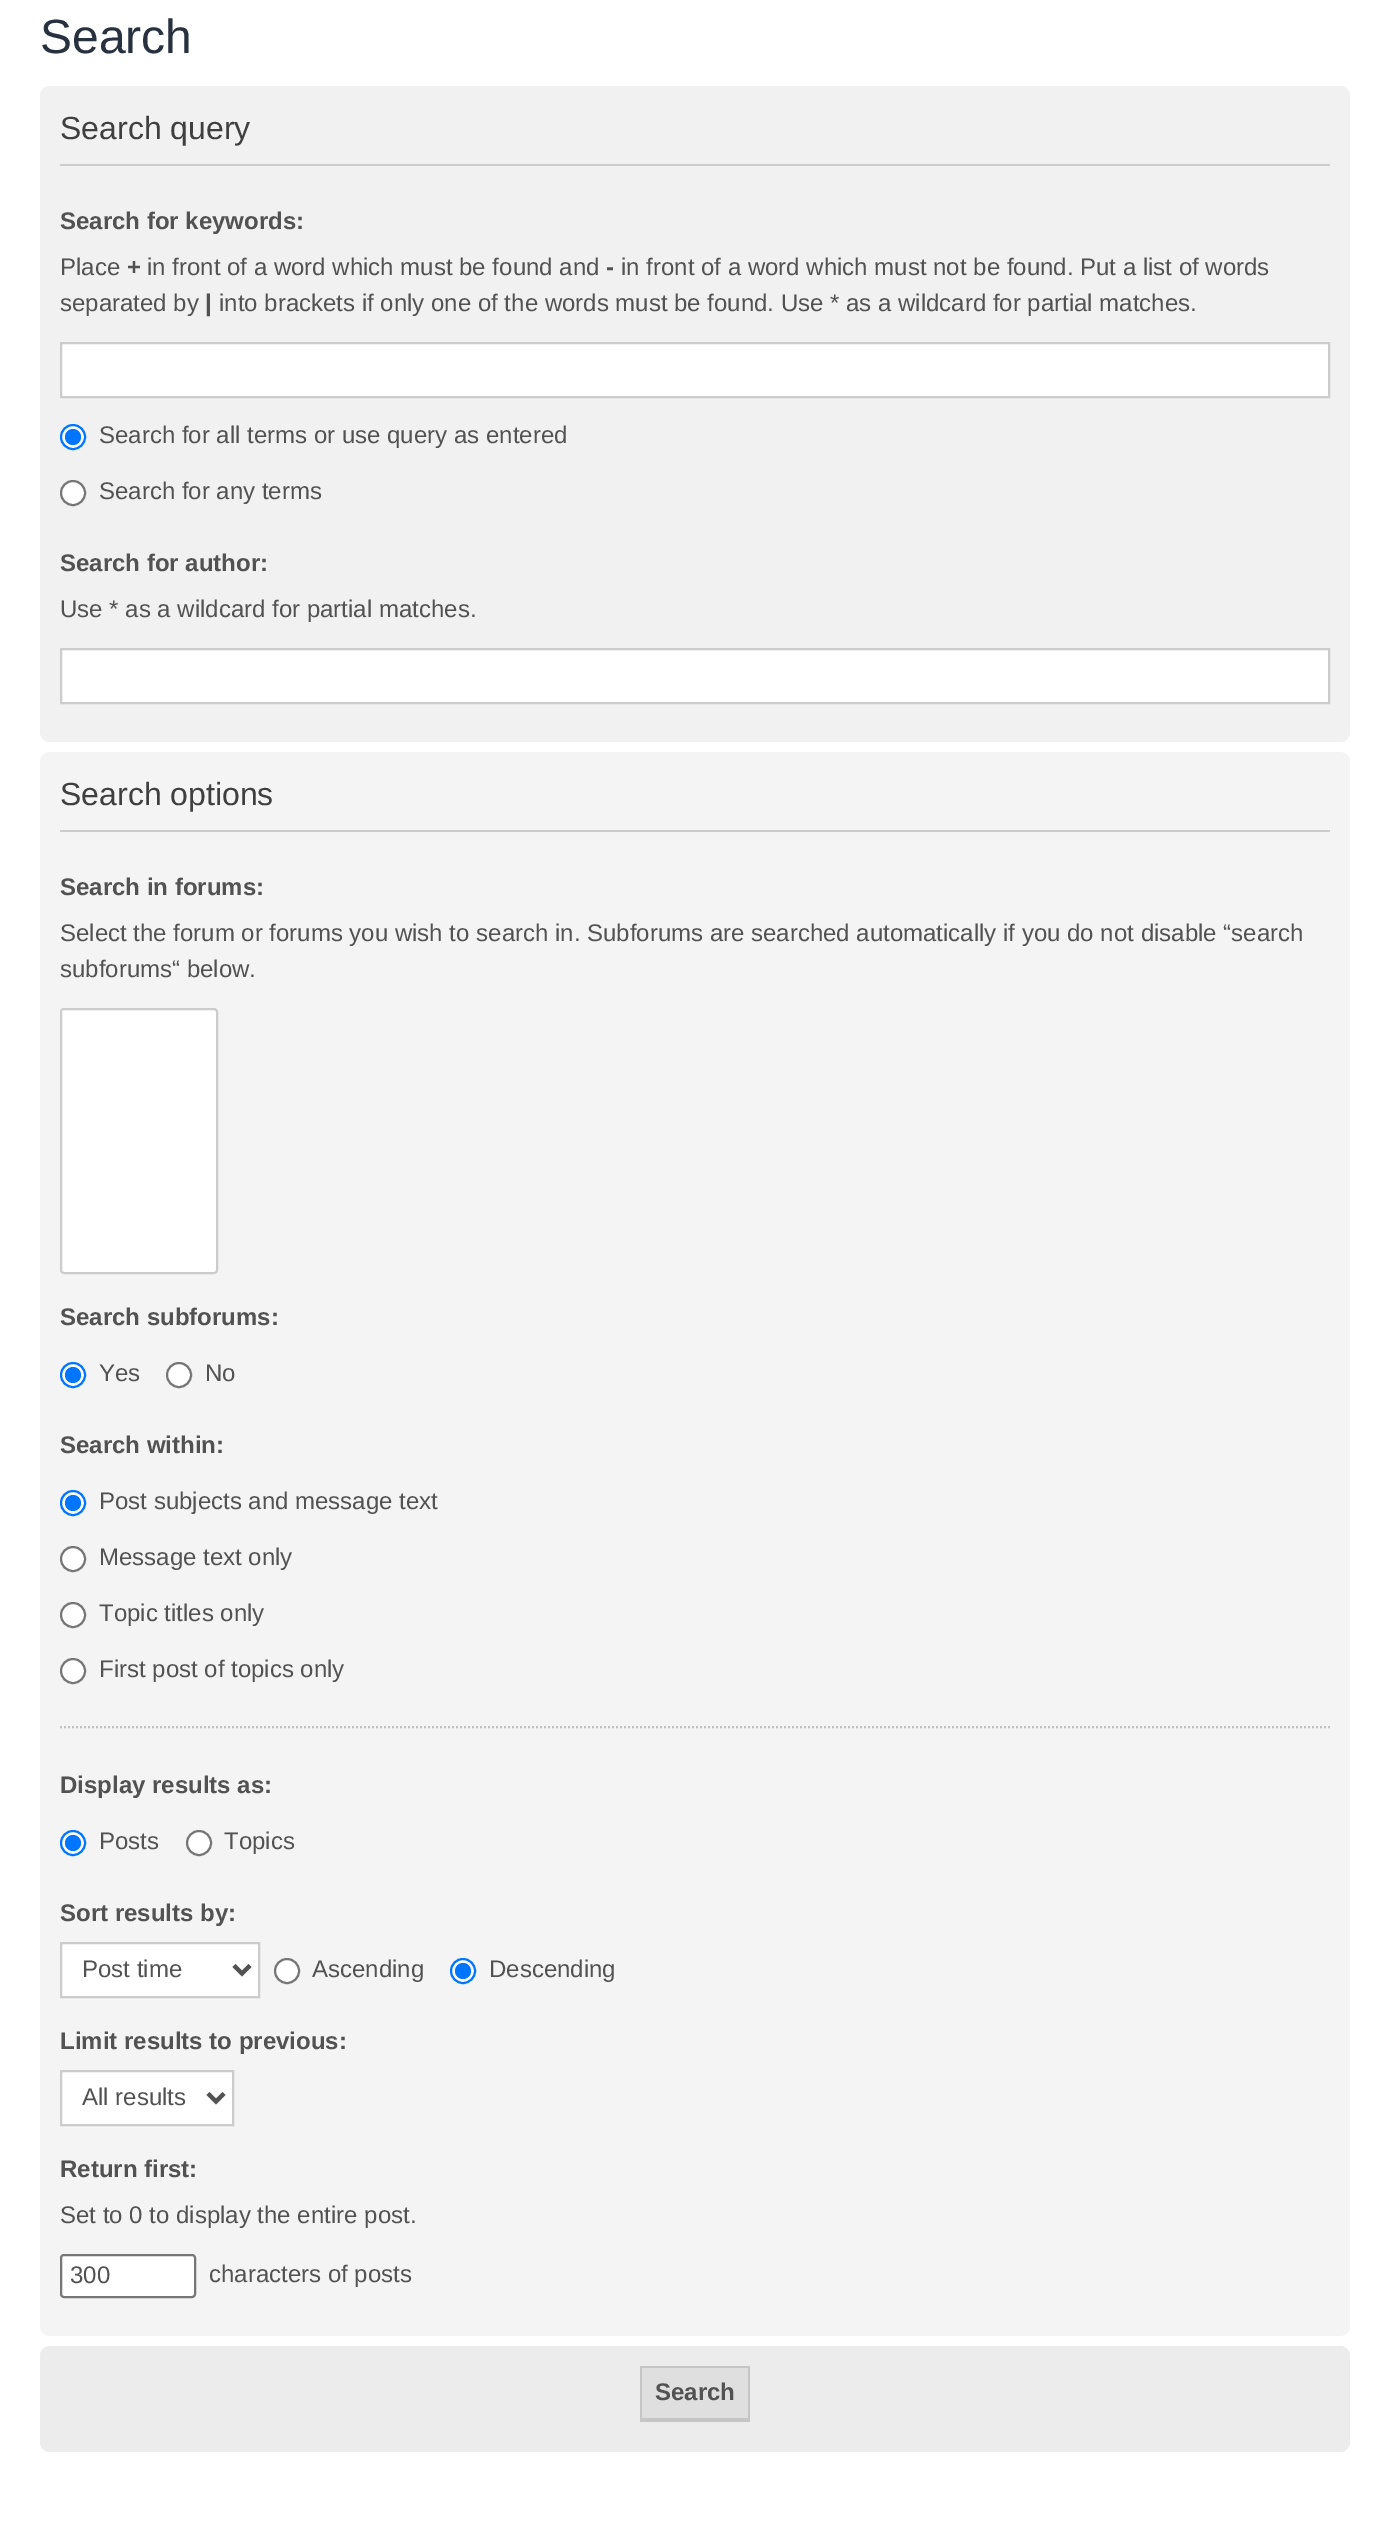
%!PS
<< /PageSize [1390 2529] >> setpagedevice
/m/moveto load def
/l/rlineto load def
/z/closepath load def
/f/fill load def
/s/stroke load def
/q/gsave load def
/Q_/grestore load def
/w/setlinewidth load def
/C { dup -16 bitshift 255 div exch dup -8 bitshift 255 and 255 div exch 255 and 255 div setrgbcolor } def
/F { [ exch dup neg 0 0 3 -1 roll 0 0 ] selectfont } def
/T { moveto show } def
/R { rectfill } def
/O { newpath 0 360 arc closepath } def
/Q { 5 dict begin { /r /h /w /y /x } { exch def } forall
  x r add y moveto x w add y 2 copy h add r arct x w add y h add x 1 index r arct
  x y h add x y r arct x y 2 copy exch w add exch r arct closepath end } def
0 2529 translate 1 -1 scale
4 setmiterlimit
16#FFFFFF C
0 0 1390 2529 R
/LiberationSans-Regular 48 F
16#28313F C
(Search) 40 53 T
16#F1F1F1 C
40 86 1310 656 10 Q f
16#CCCCCC C
60 164 1270 2 R
/LiberationSans-Regular 32 F
16#3F3F3F C
(Search query) 60 139 T
/LiberationSans-Bold 24 F
16#525252 C
(Search for keywords:) 60 229 T
/LiberationSans-Regular 24 F
(Place) 60 275 T
/LiberationSans-Bold 24 F
(+) 127 275 T
/LiberationSans-Regular 24 F
(in front of a word which must be found and) 147 275 T
/LiberationSans-Bold 24 F
(-) 606 275 T
/LiberationSans-Regular 24 F
(in front of a word which must not be found. Put a list of words) 621 275 T
(separated by) 60 311 T
/LiberationSans-Bold 24 F
(|) 205 311 T
/LiberationSans-Regular 24 F
(into brackets if only one of the words must be found. Use * as a wildcard for partial matches.) 219 311 T
16#FFFFFF C
61 343 m 1268 0 l 0 54 l -1268 0 l z q f Q_
16#CCCCCC C
2 w
s
16#FFFFFF C
73 437 12 O q f Q_
16#0075FF C
s
73 437 8 O f
16#525252 C
(Search for all terms or use query as entered) 99 443 T
16#FFFFFF C
73 493 12 O q f Q_
16#767676 C
s
16#525252 C
(Search for any terms) 99 499 T
/LiberationSans-Bold 24 F
(Search for author:) 60 571 T
/LiberationSans-Regular 24 F
(Use * as a wildcard for partial matches.) 60 617 T
16#FFFFFF C
61 649 m 1268 0 l 0 54 l -1268 0 l z q f Q_
16#CCCCCC C
s
16#F4F4F4 C
40 752 1310 1584 10 Q f
16#CCCCCC C
60 830 1270 2 R
/LiberationSans-Regular 32 F
16#3F3F3F C
(Search options) 60 805 T
/LiberationSans-Bold 24 F
16#525252 C
(Search in forums:) 60 895 T
/LiberationSans-Regular 24 F
(Select the forum or forums you wish to search in. Subforums are searched automatically if you do not disable “search) 60 941 T
(subforums“ below.) 60 977 T
16#FFFFFF C
61 1009 156 264 3 Q q f Q_
16#CCCCCC C
s
/LiberationSans-Bold 24 F
16#525252 C
(Search subforums:) 60 1325 T
16#FFFFFF C
73 1375 12 O q f Q_
16#0075FF C
s
73 1375 8 O f
/LiberationSans-Regular 24 F
16#525252 C
(Yes) 99 1381 T
16#FFFFFF C
179 1375 12 O q f Q_
16#767676 C
s
16#525252 C
(No) 205 1381 T
/LiberationSans-Bold 24 F
(Search within:) 60 1453 T
16#FFFFFF C
73 1503 12 O q f Q_
16#0075FF C
s
73 1503 8 O f
/LiberationSans-Regular 24 F
16#525252 C
(Post subjects and message text) 99 1509 T
16#FFFFFF C
73 1559 12 O q f Q_
16#767676 C
s
16#525252 C
(Message text only) 99 1565 T
16#FFFFFF C
73 1615 12 O q f Q_
16#767676 C
s
16#525252 C
(Topic titles only) 99 1621 T
16#FFFFFF C
73 1671 12 O q f Q_
16#767676 C
s
16#525252 C
(First post of topics only) 99 1677 T
16#C2C2C2 C
[2 2] 0 setdash
60 1727 m 1270 0 l s
/LiberationSans-Bold 24 F
16#525252 C
(Display results as:) 60 1793 T
16#FFFFFF C
73 1843 12 O q f Q_
16#0075FF C
[] 0 setdash
s
73 1843 8 O f
/LiberationSans-Regular 24 F
16#525252 C
(Posts) 99 1849 T
16#FFFFFF C
199 1843 12 O q f Q_
16#767676 C
s
16#525252 C
(Topics) 224 1849 T
/LiberationSans-Bold 24 F
(Sort results by:) 60 1921 T
16#FFFFFF C
61 1943 m 198 0 l 0 54 l -198 0 l z q f Q_
16#CCCCCC C
s
16#525252 C
4 w
234 1965.5 m 8 8 l 8 -8 l s
/LiberationSans-Regular 24 F
(Post time) 82 1977 T
16#FFFFFF C
287 1971 12 O q f Q_
16#767676 C
2 w
s
16#525252 C
(Ascending) 312 1977 T
16#FFFFFF C
463 1971 12 O q f Q_
16#0075FF C
s
463 1971 8 O f
16#525252 C
(Descending) 489 1977 T
/LiberationSans-Bold 24 F
(Limit results to previous:) 60 2049 T
16#FFFFFF C
61 2071 m 172 0 l 0 54 l -172 0 l z q f Q_
16#CCCCCC C
s
16#525252 C
4 w
208 2093.5 m 8 8 l 8 -8 l s
/LiberationSans-Regular 24 F
(All results) 82 2105 T
/LiberationSans-Bold 24 F
(Return first:) 60 2177 T
/LiberationSans-Regular 24 F
(Set to 0 to display the entire post.) 60 2223 T
16#FFFFFF C
61 2255 134 42 3 Q q f Q_
16#767676 C
2 w
s
16#525252 C
(300) 70 2283 T
(characters of posts) 209 2282 T
16#ECECEC C
40 2346 1310 106 10 Q f
16#DFDFDF C
642 2368 106 50 R
16#C5C5C5 C
640 2366 110 2 R
748 2366 2 56 R
640 2418 110 4 R
640 2366 2 56 R
/LiberationSans-Bold 24 F
16#525252 C
(Search) 655 2400 T
showpage
